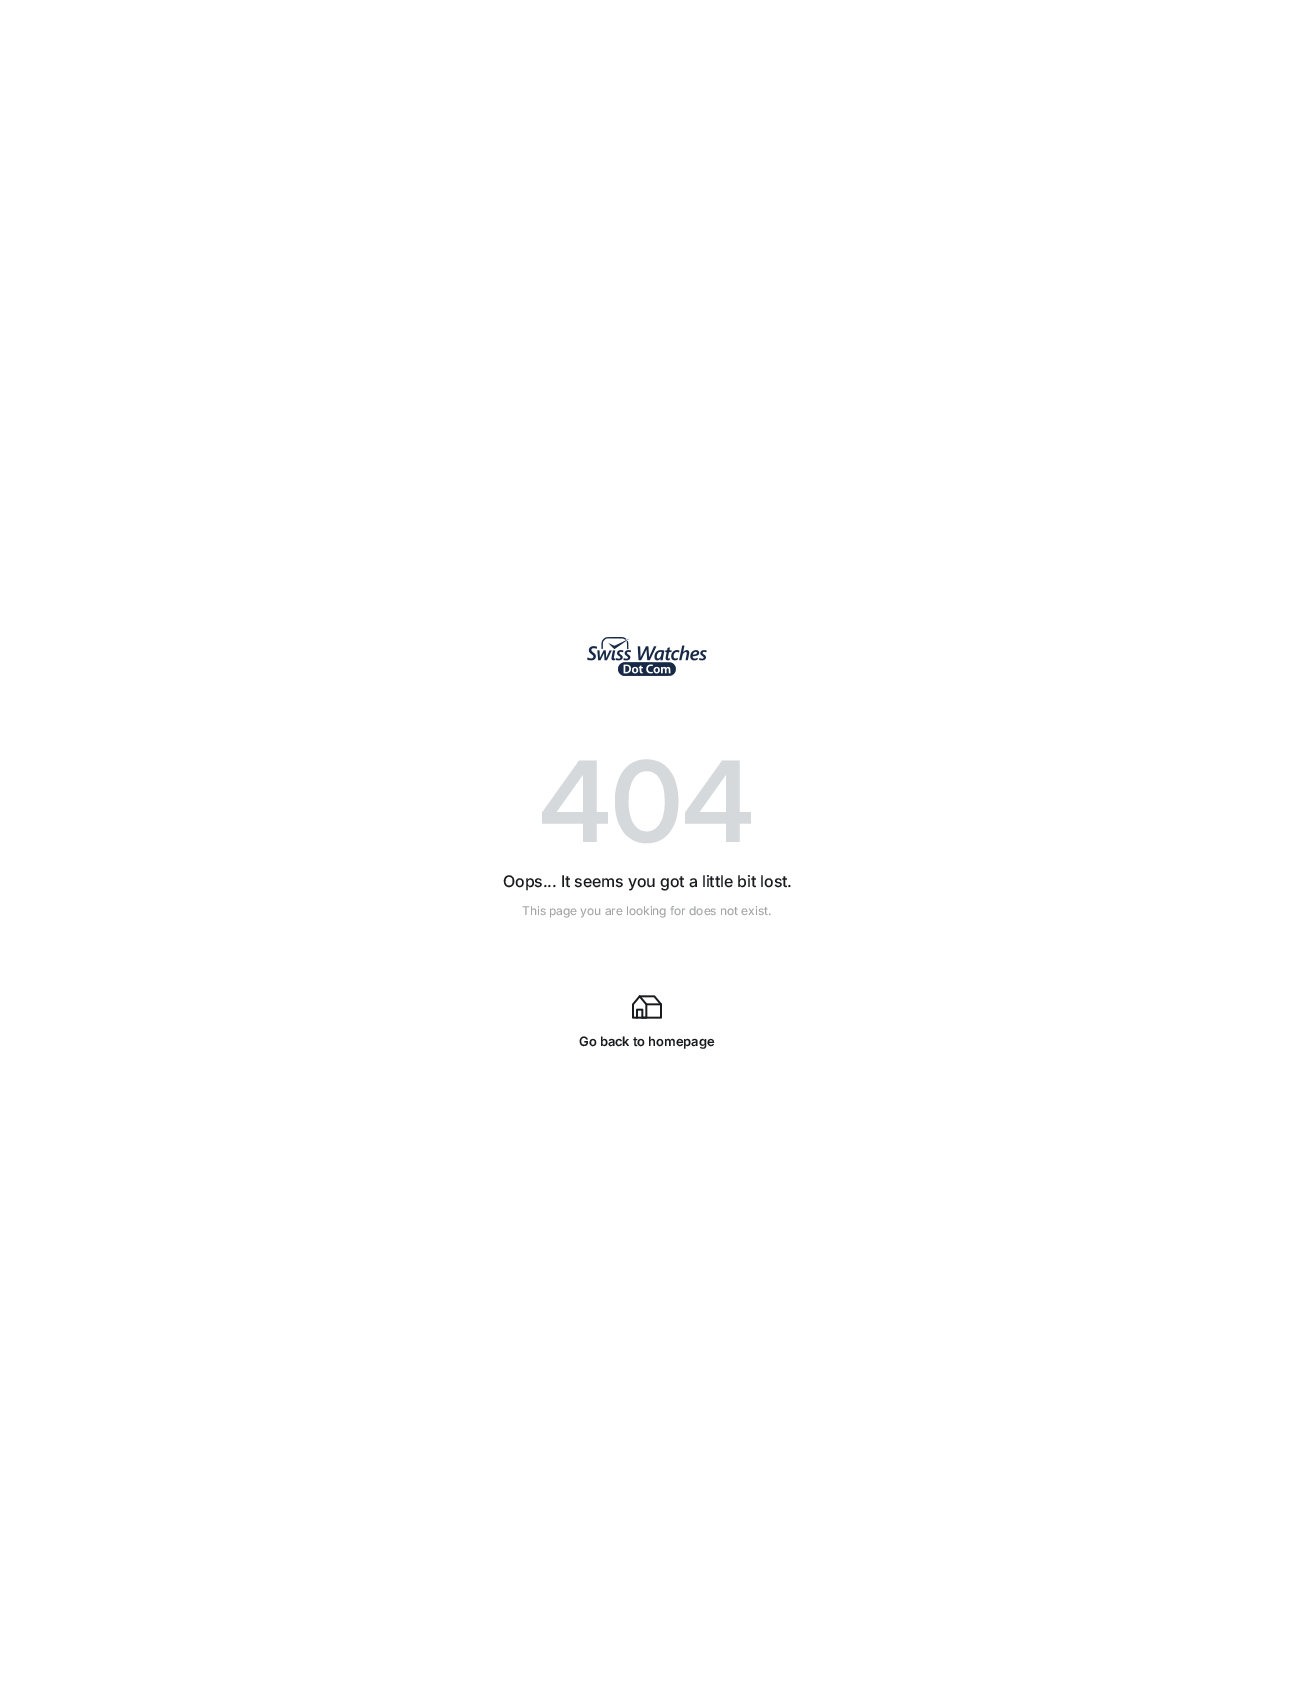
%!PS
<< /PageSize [1294 1690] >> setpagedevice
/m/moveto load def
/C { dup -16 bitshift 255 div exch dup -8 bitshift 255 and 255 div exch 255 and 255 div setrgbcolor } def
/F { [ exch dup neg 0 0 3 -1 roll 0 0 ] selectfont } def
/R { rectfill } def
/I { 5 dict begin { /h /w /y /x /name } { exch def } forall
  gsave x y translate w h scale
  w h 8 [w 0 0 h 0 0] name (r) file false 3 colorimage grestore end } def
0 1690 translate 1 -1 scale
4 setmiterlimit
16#FFFFFF C
0 0 1294 1690 R
(1.rgb) 587 637 120 39 I
/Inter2-SemiBoldItalic 112 F
16#D6D9DC C
539 842 m -.1 0 (404) ashow
/Inter-MediumItalic 16 F
16#1A1B1D C
503 887 m -.1 0 (Oops... It seems you got a little bit lost.) ashow
/Inter-Italic 12 F
16#A3A4A5 C
522 915 m -.1 0 (This page you are looking for does not exist.) ashow
(2.rgb) 632 995 30 24 I
/Inter-SemiBoldItalic 13 F
16#1A1B1D C
579 1046 m -.1 0 (Go back to homepage) ashow
showpage
